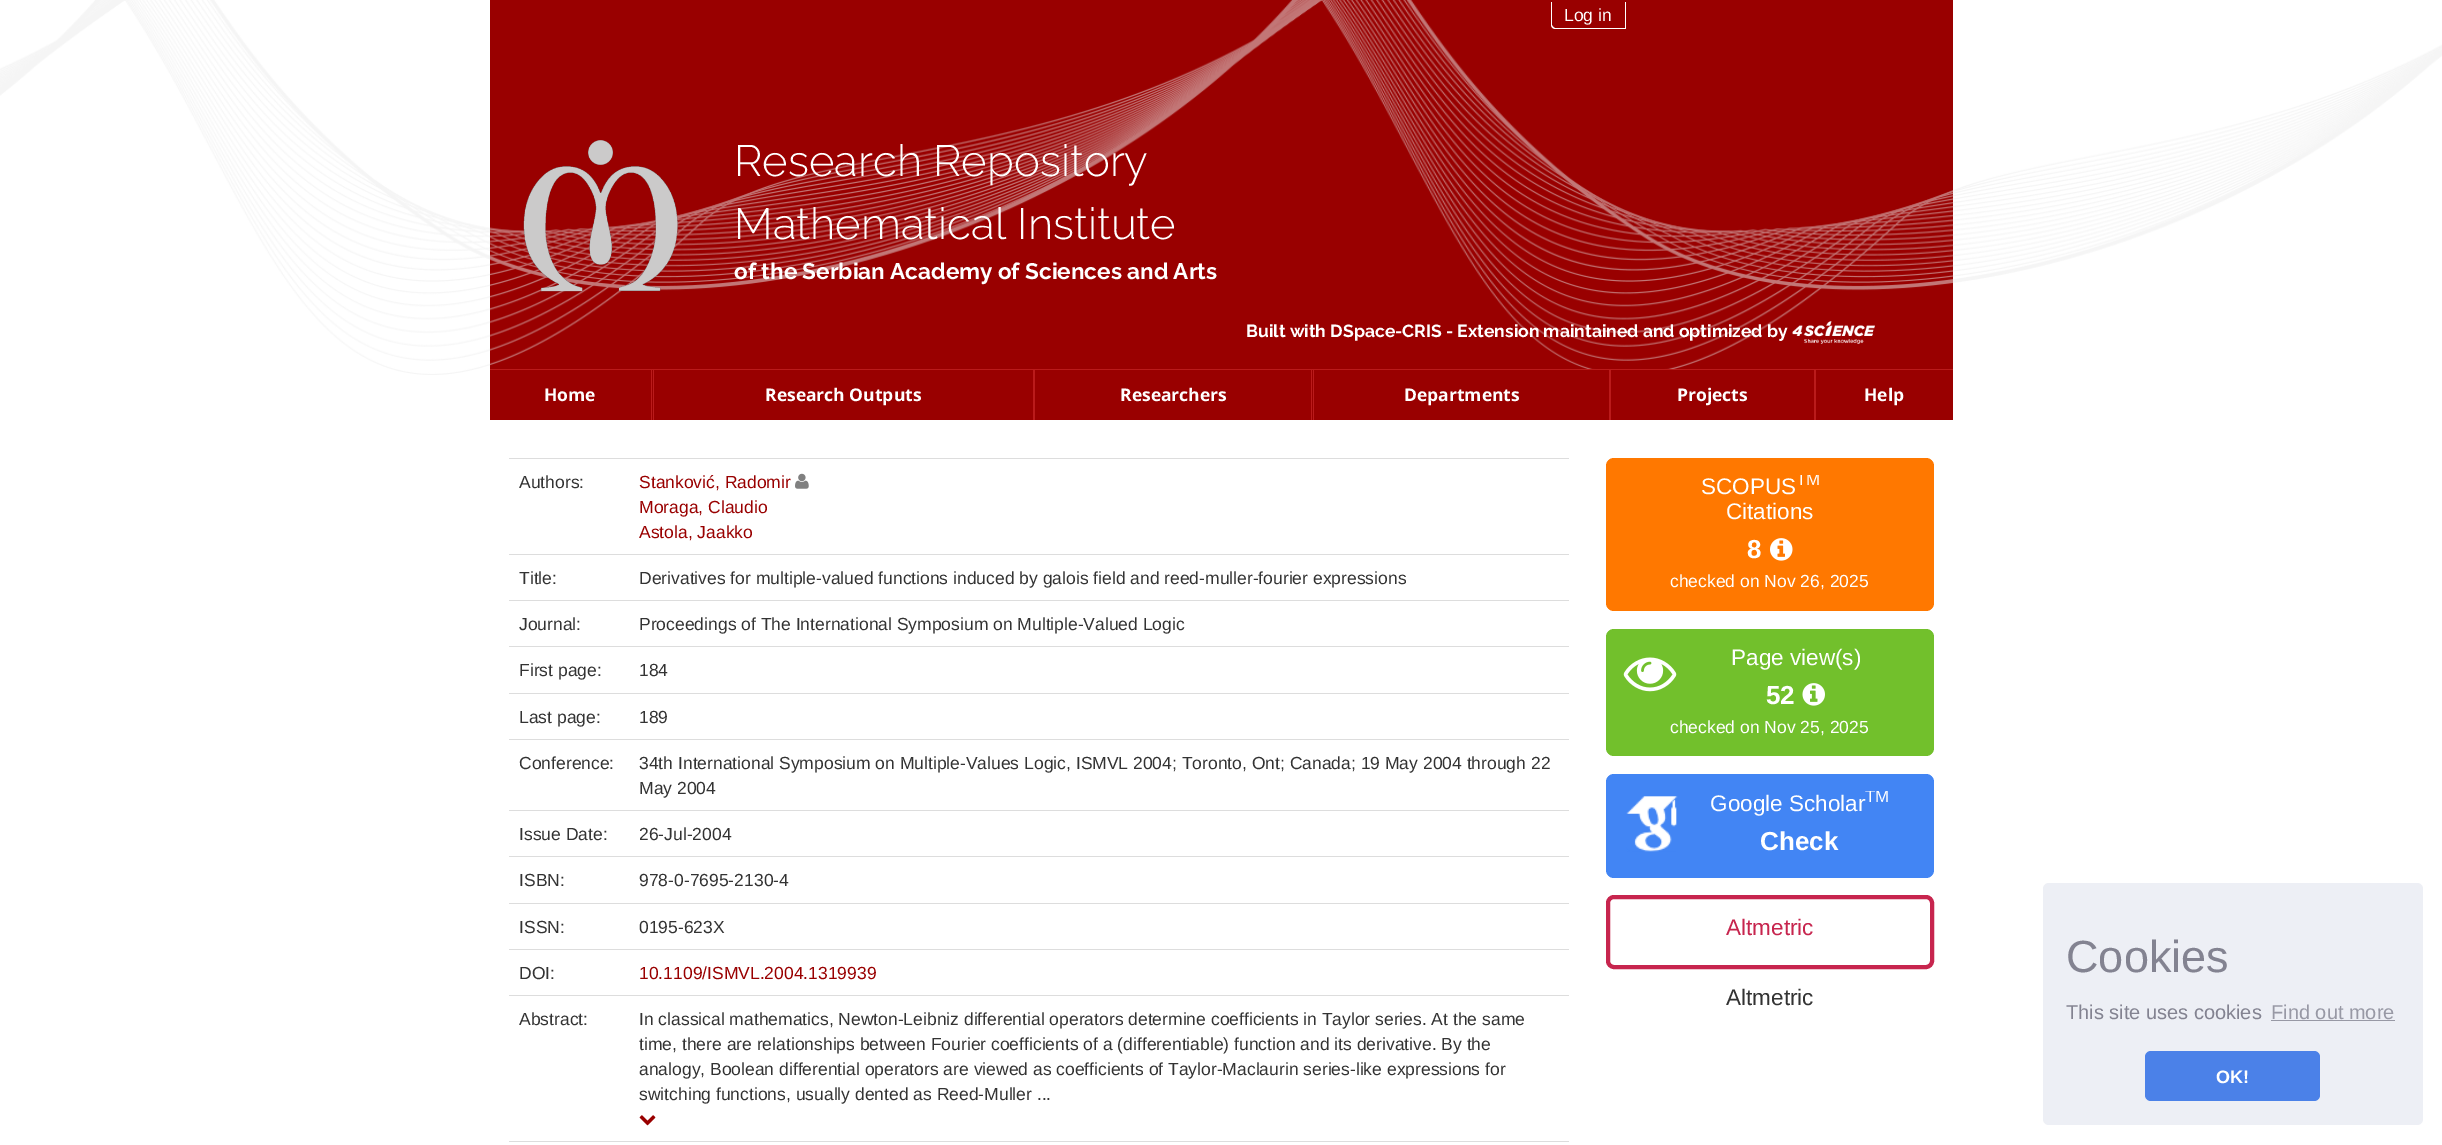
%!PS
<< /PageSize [2442 1145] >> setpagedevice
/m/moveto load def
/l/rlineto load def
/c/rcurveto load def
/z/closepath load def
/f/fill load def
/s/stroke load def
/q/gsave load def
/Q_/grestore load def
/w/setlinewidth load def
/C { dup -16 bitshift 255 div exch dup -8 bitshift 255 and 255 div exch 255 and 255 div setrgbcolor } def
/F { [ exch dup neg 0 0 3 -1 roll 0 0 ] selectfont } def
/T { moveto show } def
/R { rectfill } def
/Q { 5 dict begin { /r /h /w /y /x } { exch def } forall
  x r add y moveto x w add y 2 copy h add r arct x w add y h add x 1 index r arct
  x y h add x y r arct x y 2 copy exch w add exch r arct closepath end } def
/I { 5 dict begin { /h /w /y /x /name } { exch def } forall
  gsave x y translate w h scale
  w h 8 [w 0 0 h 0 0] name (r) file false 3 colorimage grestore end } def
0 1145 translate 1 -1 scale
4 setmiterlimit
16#FFFFFF C
0 0 2442 1145 R
16#990000 C
490 0 1463 369 R
(1.rgb) 0 0 2442 375 I
16#FFFFFF C
1551 2 m 75 0 l 0 27 l -71 0 l -2 0 -4 -2 -4 -4 c z 1552 2 m 73 0 l 0 26 l -70 0 l -1 0 -3 -2 -3 -3 c z eofill
/LiberationSans-Regular 17.5 F
(Log in) 1564 21 T
(2.rgb) 523 140 155 152 I
/Raleway-Light 43.75 F
(Research Repository) 734 176 T
(Mathematical Institute) 734 239 T
/Raleway-Bold 22.5 F
(of the Serbian Academy of Sciences and Arts) 734 279 T
/Raleway-Bold 17.5 F
(Built with DSpace-CRIS - Extension maintained and optimized by) 1246 337 T
(3.rgb) 1792 321 83 23 I
16#990000 C
490 370 1463 50 R
16#BA1B1B C
490 369 1463 1 R
651 370 1 50 R
/OpenSans-Bold 17.5 F
16#FFFFFF C
(Home) 544 401 T
16#BA1B1B C
1033 370 2 50 R
653 370 1 50 R
16#FFFFFF C
(Research Outputs) 765 401 T
16#BA1B1B C
1311 370 1 50 R
16#FFFFFF C
(Researchers) 1120 401 T
16#BA1B1B C
1609 370 2 50 R
1313 370 1 50 R
16#FFFFFF C
(Departments) 1404 401 T
16#BA1B1B C
1814 370 2 50 R
16#FFFFFF C
(Projects) 1677 401 T
(Help) 1864 401 T
/LiberationSans-Regular 17.5 F
16#333333 C
(Authors:) 519 488 T
16#DDDDDD C
509 458 1060 1 R
16#990000 C
(Stanković, Radomir) 639 488 T
(4.rgb) 795 473 14 16 I
(Moraga, Claudio) 639 513 T
(Astola, Jaakko) 639 538 T
16#333333 C
(Title:) 519 584 T
16#DDDDDD C
509 554 1060 1 R
16#333333 C
(Derivatives for multiple-valued functions induced by galois field and reed-muller-fourier expressions) 639 584 T
(Journal:) 519 630 T
16#DDDDDD C
509 600 1060 1 R
16#333333 C
(Proceedings of The International Symposium on Multiple-Valued Logic) 639 630 T
(First page:) 519 676 T
16#DDDDDD C
509 646 1060 1 R
16#333333 C
(184) 639 676 T
(Last page:) 519 723 T
16#DDDDDD C
509 693 1060 1 R
16#333333 C
(189) 639 723 T
(Conference:) 519 769 T
16#DDDDDD C
509 739 1060 1 R
16#333333 C
(34th International Symposium on Multiple-Values Logic, ISMVL 2004; Toronto, Ont; Canada; 19 May 2004 through 22) 639 769 T
(May 2004) 639 794 T
(Issue Date:) 519 840 T
16#DDDDDD C
509 810 1060 1 R
16#333333 C
(26-Jul-2004) 639 840 T
(ISBN:) 519 886 T
16#DDDDDD C
509 856 1060 1 R
16#333333 C
(978-0-7695-2130-4) 639 886 T
(ISSN:) 519 933 T
16#DDDDDD C
509 903 1060 1 R
16#333333 C
(0195-623X) 639 933 T
(DOI:) 519 979 T
16#DDDDDD C
509 949 1060 1 R
16#990000 C
(10.1109/ISMVL.2004.1319939) 639 979 T
16#333333 C
(Abstract:) 519 1025 T
16#DDDDDD C
509 995 1060 1 R
16#333333 C
(In classical mathematics, Newton-Leibniz differential operators determine coefficients in Taylor series. At the same) 639 1025 T
(time, there are relationships between Fourier coefficients of a \(differentiable\) function and its derivative. By the) 639 1050 T
(analogy, Boolean differential operators are viewed as coefficients of Taylor-Maclaurin series-like expressions for) 639 1075 T
(switching functions, usually dented as Reed-Muller ...) 639 1100 T
(5.rgb) 639 1115 17 11 I
16#DDDDDD C
509 1141 1060 1 R
16#FF7800 C
1606 458 328 153 8 Q f
/LiberationSans-Regular 22.5 F
16#FFFFFF C
(SCOPUS) 1701 494 T
q
1624 475 292 94 rectclip
/LiberationSans-Regular 17 F
(TM) 1796 485 T
Q_
(Citations) 1726 519 T
/LiberationSans-Bold 26 F
(8) 1747 558 T
(6.rgb) 1770 538 23 23 I
/LiberationSans-Regular 17.5 F
(checked on Nov 26, 2025) 1670 587 T
16#72C02C C
1606 629 328 127 8 Q f
(7.rgb) 1623 657 54 35 I
/LiberationSans-Regular 22.5 F
16#FFFFFF C
(Page view\(s\)) 1731 665 T
/LiberationSans-Bold 26 F
(52) 1766 704 T
(8.rgb) 1802 683 23 23 I
/LiberationSans-Regular 17.5 F
(checked on Nov 25, 2025) 1670 733 T
16#4285F4 C
1606 774 328 104 8 Q f
(9.rgb) 1626 796 52 56 I
/LiberationSans-Regular 22.5 F
16#FFFFFF C
(Google Scholar) 1710 811 T
q
1684 791 232 69 rectclip
/LiberationSans-Regular 17 F
(TM) 1865 802 T
Q_
/LiberationSans-Bold 26 F
(Check) 1760 850 T
16#C7254E C
4 w
1608 897 324 70 6 Q s
/LiberationSans-Regular 22.5 F
(Altmetric) 1726 935 T
16#333333 C
(Altmetric) 1726 1005 T
16#EDEFF5 C
2043 883 380 242 6 Q f
/LiberationSans-Regular 45 F
16#838391 C
(Cookies) 2066 972 T
/LiberationSans-Regular 20 F
(This site uses cookies) 2066 1019 T
16#9899A5 C
(Find out more) 2271 1019 T
2271 1020 124 1 R
16#4B81E8 C
2145 1051 175 50 6 Q f
/LiberationSans-Bold 18 F
16#FFFFFF C
(OK!) 2216 1083 T
showpage
